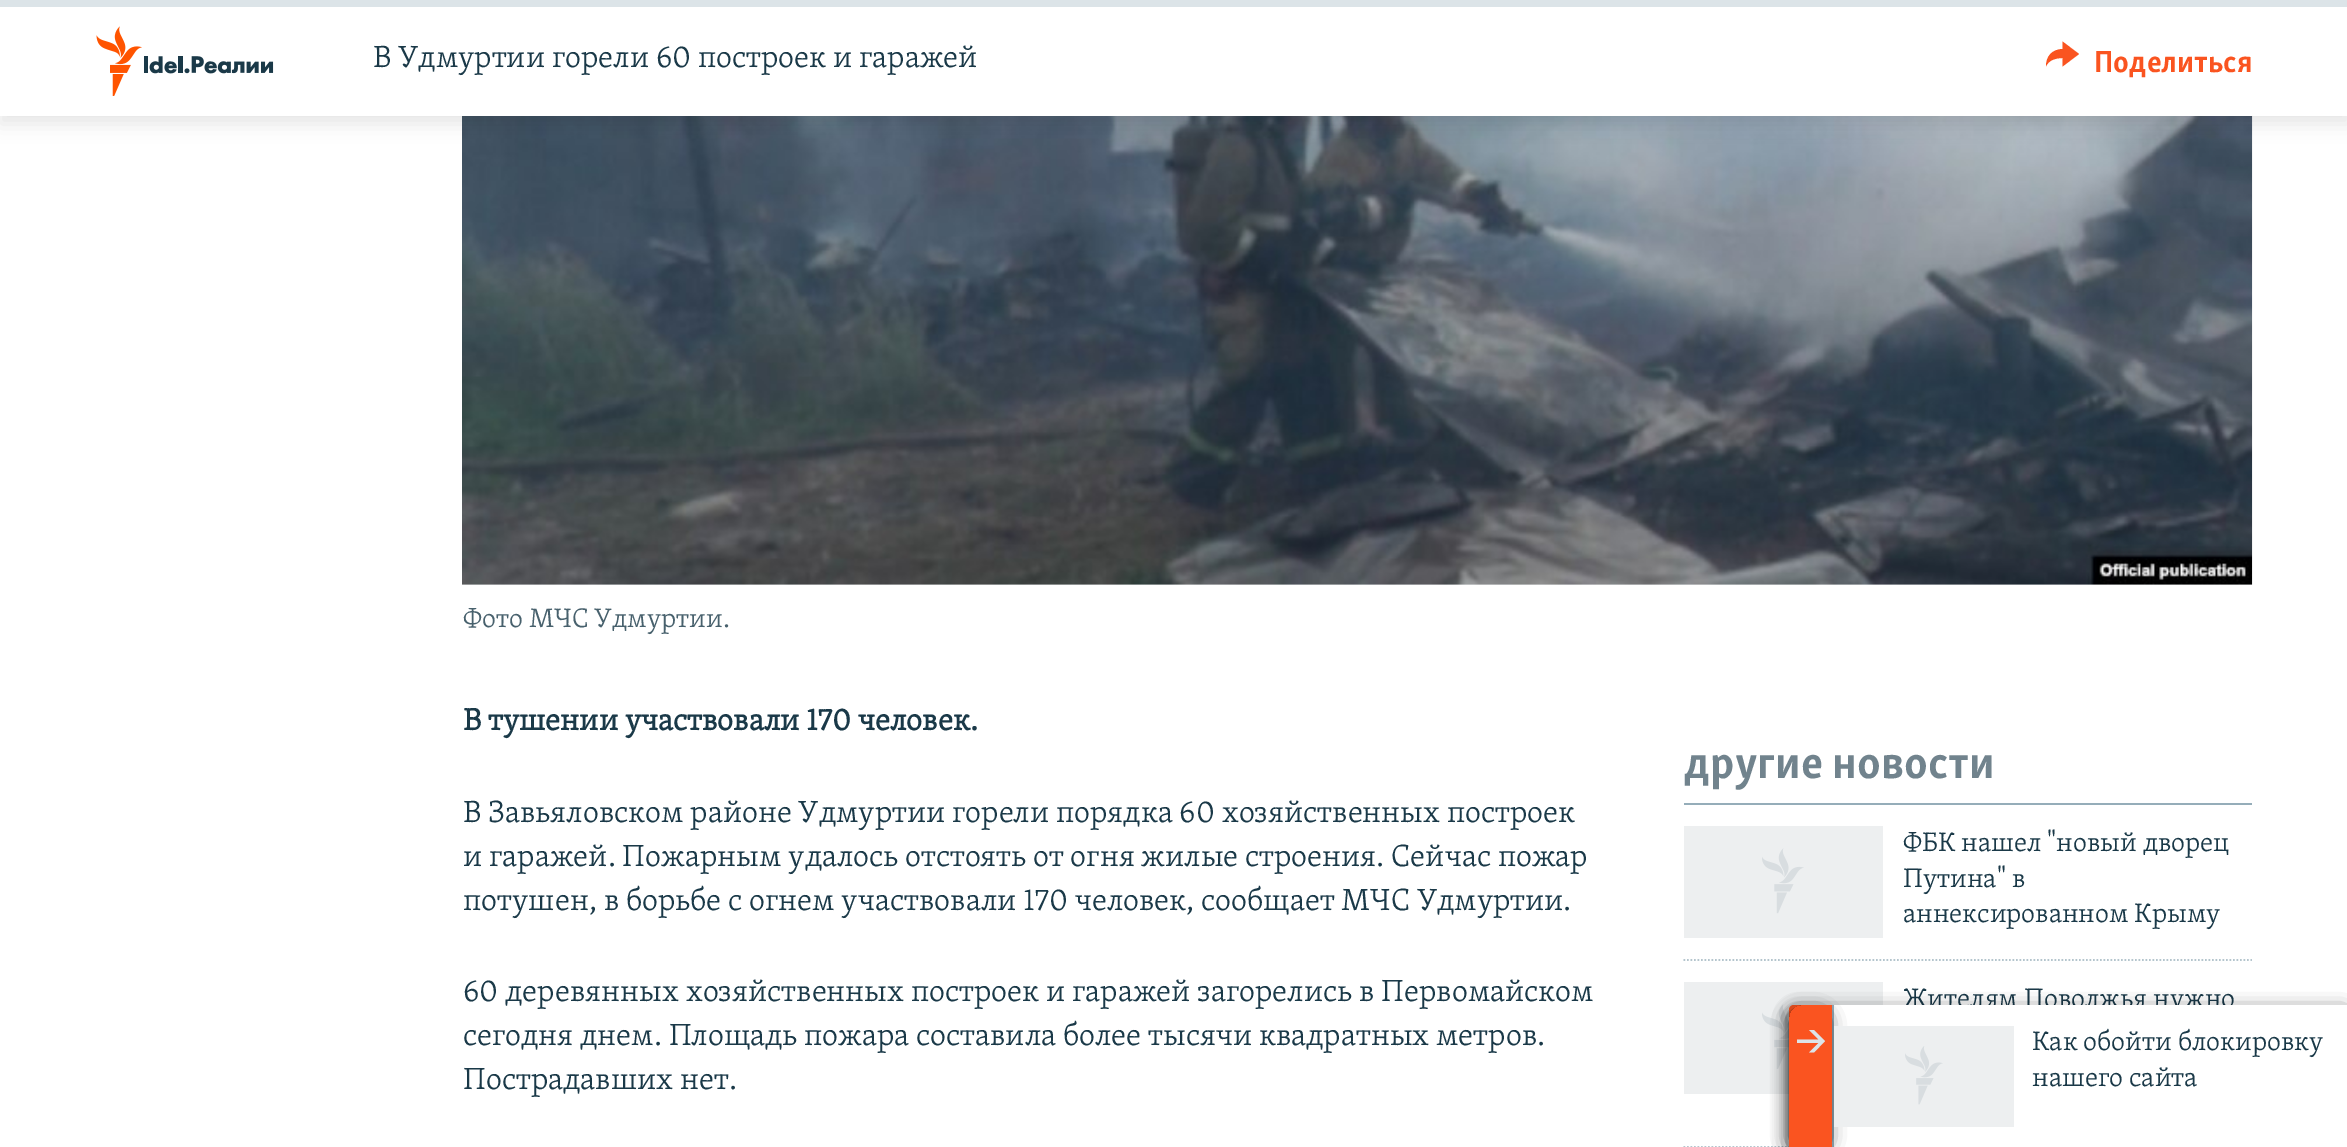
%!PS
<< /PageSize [2347 1147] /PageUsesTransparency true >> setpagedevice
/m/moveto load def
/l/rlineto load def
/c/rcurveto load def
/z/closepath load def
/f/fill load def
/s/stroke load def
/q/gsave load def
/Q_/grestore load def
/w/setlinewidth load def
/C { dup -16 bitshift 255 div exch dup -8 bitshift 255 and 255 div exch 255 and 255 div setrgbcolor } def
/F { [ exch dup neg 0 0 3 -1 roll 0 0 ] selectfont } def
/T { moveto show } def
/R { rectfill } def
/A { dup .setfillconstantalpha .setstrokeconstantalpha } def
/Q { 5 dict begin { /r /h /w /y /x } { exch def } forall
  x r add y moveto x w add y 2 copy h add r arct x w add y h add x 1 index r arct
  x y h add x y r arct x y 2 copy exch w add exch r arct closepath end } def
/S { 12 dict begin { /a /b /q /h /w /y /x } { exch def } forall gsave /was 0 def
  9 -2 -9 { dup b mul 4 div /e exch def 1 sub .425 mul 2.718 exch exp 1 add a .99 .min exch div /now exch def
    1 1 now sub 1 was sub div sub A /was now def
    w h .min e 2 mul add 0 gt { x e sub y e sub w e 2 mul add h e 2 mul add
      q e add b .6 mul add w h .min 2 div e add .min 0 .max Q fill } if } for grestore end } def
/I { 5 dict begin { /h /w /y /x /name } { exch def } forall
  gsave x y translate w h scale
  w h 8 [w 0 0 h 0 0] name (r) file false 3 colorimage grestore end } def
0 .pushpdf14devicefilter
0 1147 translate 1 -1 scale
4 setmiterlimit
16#FFFFFF C
0 0 2347 1147 R
16#EDEFF0 C
462 584 1790 1 R
(2.rgb) 462 116 1791 469 I
16#000000 C
0 9 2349 115 0 9 .1 S
16#FFFFFF C
0 7 2347 109 R
16#DCE4E8 C
0 0 2347 7 R
(1.rgb) 96 26 178 70 I
/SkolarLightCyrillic-Light 31.5 F
16#1A3948 C
(В Удмуртии горели 60 построек и гаражей) 373 67 T
16#FA5420 C
2046 66.5 m 0 -10.5 6 -17 16.5 -17.5 c 0 -7.5 l 16.5 12.5 l -16.5 12.5 l 0 -8.5 l -6.5 0 -14 2 -16.5 8.5 c z f
/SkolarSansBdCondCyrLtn-Bold 31.5 F
(Поделиться) 2094 72 T
/SkolarLightCyrillic-Light 27.5 F
16#48616D C
(Фото МЧС Удмуртии.) 463 627 T
/SkolarLightCyrillic-Bold 31.5 F
16#1A3948 C
(В тушении участвовали 170 человек.) 463 730 T
/SkolarLightCyrillic-Light 31.5 F
(В Завьяловском районе Удмуртии горели порядка 60 хозяйственных построек) 463 822 T
(и гаражей. Пожарным удалось отстоять от огня жилые строения. Сейчас пожар) 463 866 T
(потушен, в борьбе с огнем участвовали 170 человек, сообщает МЧС Удмуртии.) 463 910 T
(60 деревянных хозяйственных построек и гаражей загорелись в Первомайском) 463 1001 T
(сегодня днем. Площадь пожара составила более тысячи квадратных метров.) 463 1045 T
(Пострадавших нет.) 463 1089 T
16#95ADB9 C
1684 803 568 2 R
/SkolarSansBdCondCyrLtn-Bold 47.25 F
16#71838D C
(другие новости) 1684 778 T
16#EDEFF0 C
1684 826 199 112 R
(3.rgb) 1762 848 42 66 I
/SkolarLightCyrillic-Light 27.5 F
16#1A3948 C
(ФБК нашел "новый дворец) 1903 851 T
(Путина" в) 1903 887 T
(аннексированном Крыму) 1903 922 T
16#B4C5CD C
1.8 w
[1.75 1.75] 0 setdash
1683.5 960 m 568.5 0 l s
16#EDEFF0 C
1684 982 199 112 R
(4.rgb) 1762 1004 27 65 I
16#1A3948 C
(Жителям Поволжья нужно) 1903 1007 T
16#B4C5CD C
1683.5 1147 m 568.5 0 l s
16#000000 C
1792 1012 553 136 2 9 .85 S
16#FA5420 C
1794 1005 m 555 0 l 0 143 l -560 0 l 0 -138 l 0 -3 2 -5 5 -5 c z f
16#FFFFFF C
1834 1005 513 142 R
16#95ADB9 C
1832 1005 2 142 R
q
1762 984 m 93 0 l 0 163 l -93 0 l z 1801 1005 m 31 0 l 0 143 l -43 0 l 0 -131 l 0 -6.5 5.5 -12 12 -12 c z eoclip newpath
16#000000 C
1790 1012 37 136 9 9 .85 S
Q_
16#DCE4E8 C
1825 1041 m -11 -11 l -5 0 l 9.5 9.5 l -21.5 0 l 0 3.5 l 21.5 0 l -9.5 9.5 l 5 0 l z f
16#EDEFF0 C
1834 1026 180 101 R
(5.rgb) 1905 1046 38 59 I
16#1A3948 C
(Как обойти блокировку) 2032 1050 T
(нашего сайта) 2032 1086 T
.poppdf14devicefilter showpage
